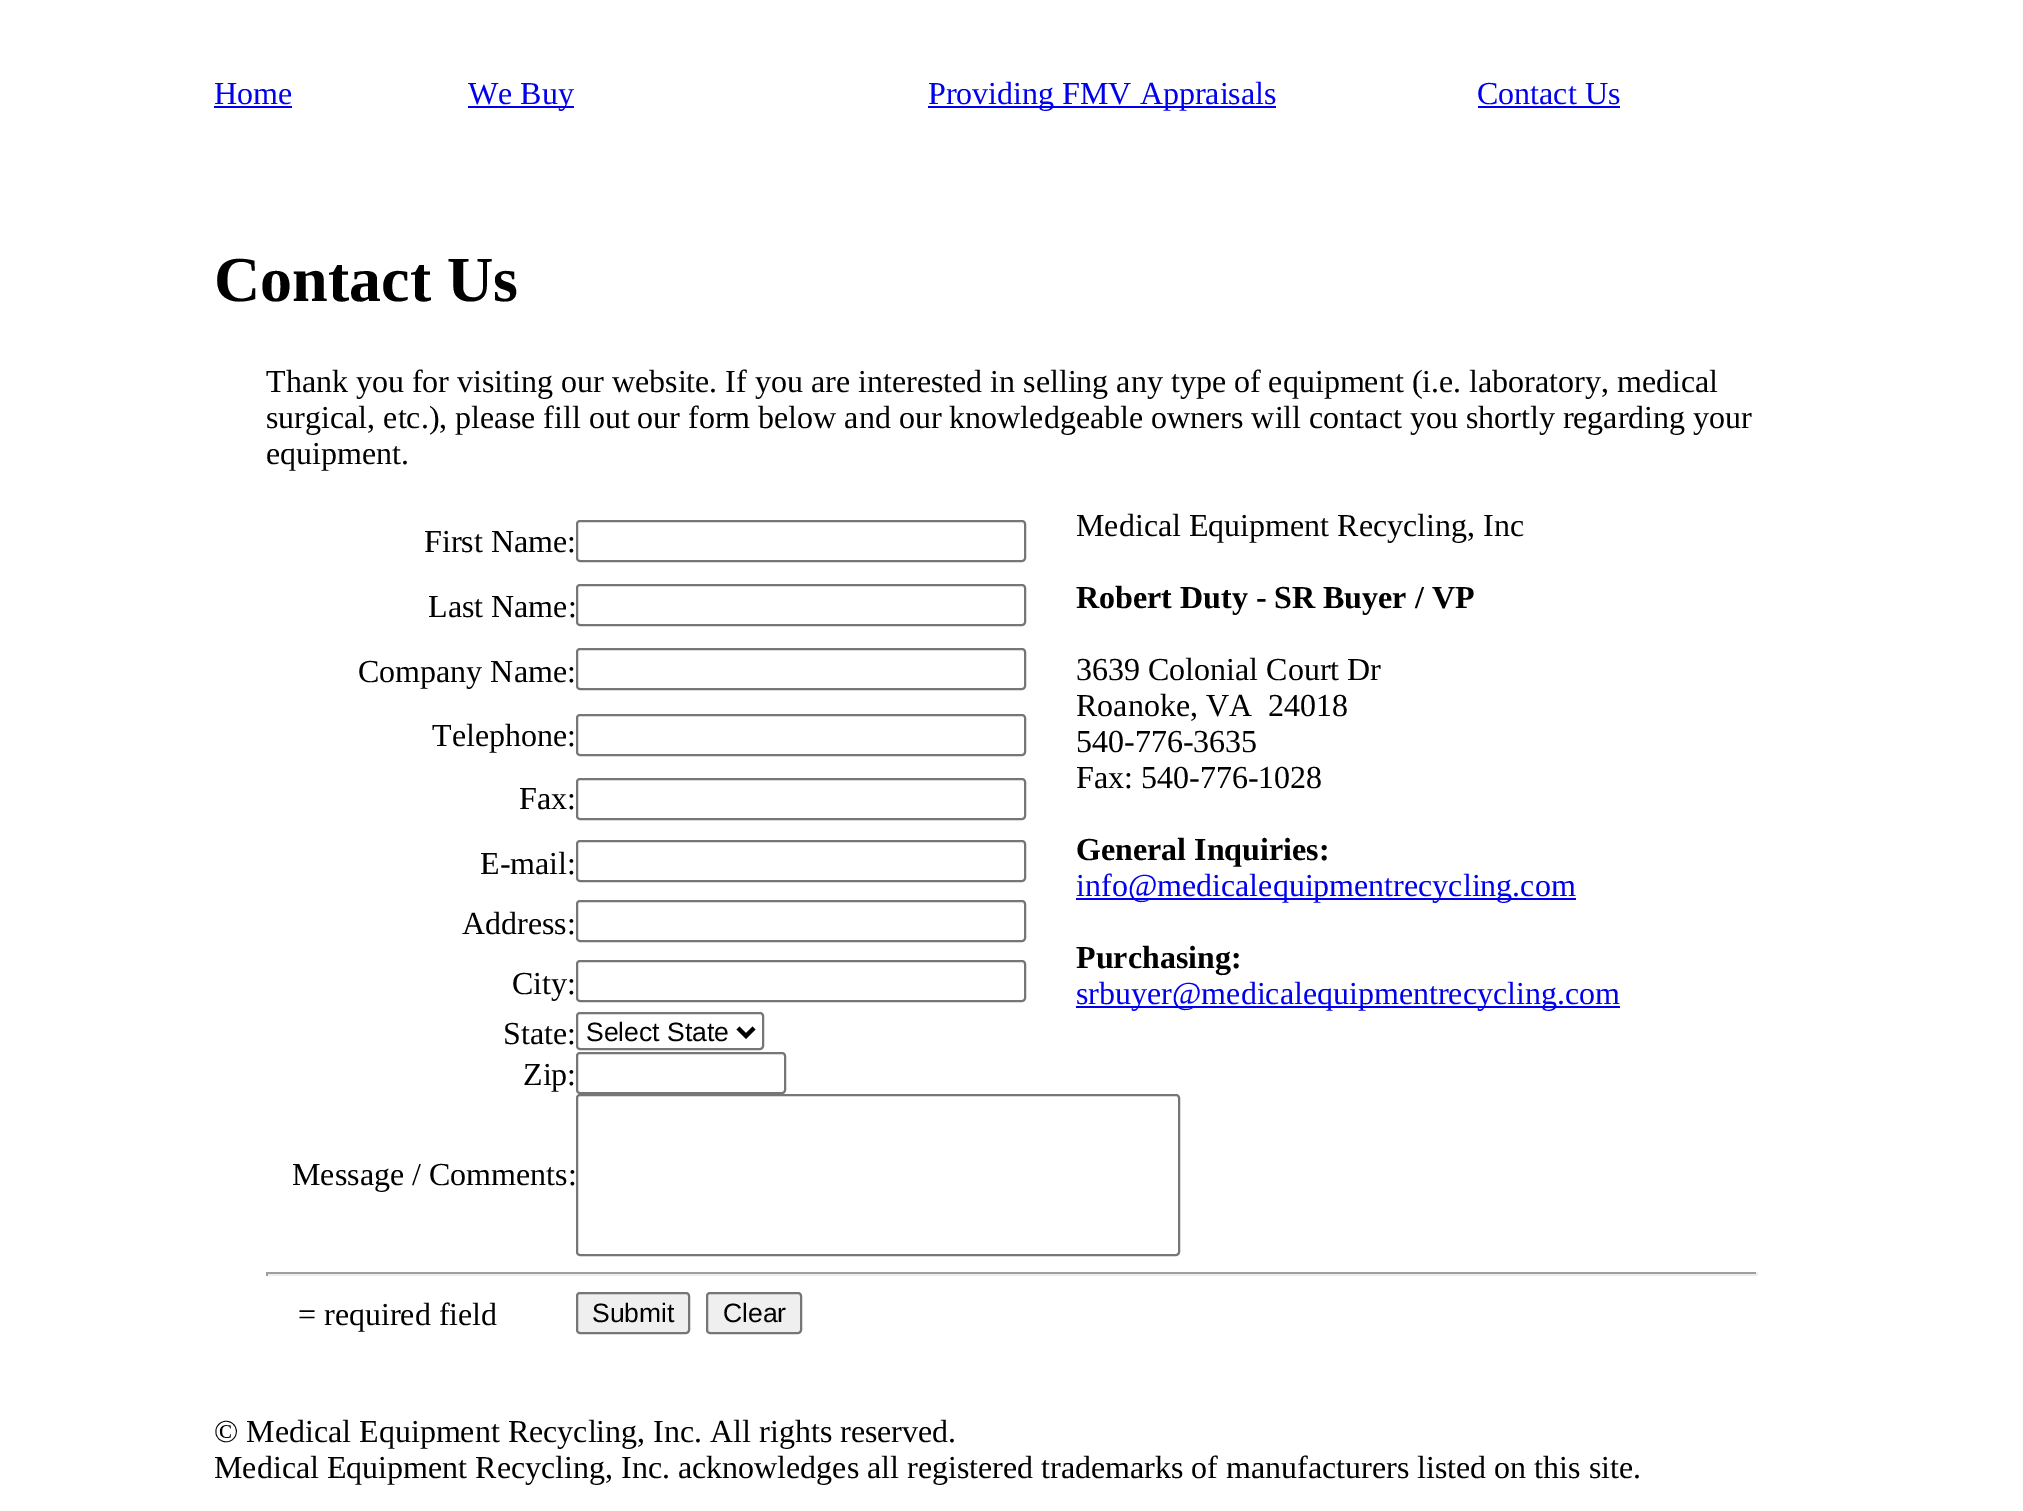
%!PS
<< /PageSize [2023 1511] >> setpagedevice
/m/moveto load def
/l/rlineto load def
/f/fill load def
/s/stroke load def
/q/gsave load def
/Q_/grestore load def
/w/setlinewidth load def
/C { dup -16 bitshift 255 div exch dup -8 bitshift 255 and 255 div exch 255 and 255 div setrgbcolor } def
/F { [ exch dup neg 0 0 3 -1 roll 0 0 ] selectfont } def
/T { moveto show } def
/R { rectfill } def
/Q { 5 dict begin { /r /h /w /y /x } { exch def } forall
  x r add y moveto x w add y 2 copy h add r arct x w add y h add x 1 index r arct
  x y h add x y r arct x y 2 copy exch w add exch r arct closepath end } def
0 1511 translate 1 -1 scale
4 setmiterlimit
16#FFFFFF C
0 0 2023 1511 R
/LiberationSerif-Regular 32 F
16#0000EE C
(Home) 214 104 T
214 106 78 2 R
468 106 106 2 R
(We Buy) 468 104 T
928 106 348 2 R
(Providing FMV Appraisals) 928 104 T
(Contact Us) 1477 104 T
1478 106 142 2 R
/LiberationSerif-Bold 64 F
16#000000 C
(Contact Us) 214 301 T
/LiberationSerif-Regular 32 F
(Thank you for visiting our website. If you are interested in selling any type of equipment \(i.e. laboratory, medical) 266 392 T
(surgical, etc.\), please fill out our form below and our knowledgeable owners will contact you shortly regarding your) 266 428 T
(equipment.) 266 464 T
(First Name:) 424 552 T
16#767676 C
2 w
577 521 448 40 3 Q s
16#000000 C
(Medical Equipment Recycling, Inc) 1076 536 T
/LiberationSerif-Bold 32 F
(Robert Duty - SR Buyer / VP) 1076 608 T
/LiberationSerif-Regular 32 F
(3639 Colonial Court Dr) 1076 680 T
(Roanoke, VA  24018) 1076 716 T
(540-776-3635) 1076 752 T
(Fax: 540-776-1028) 1076 788 T
(Last Name:) 428 617 T
16#767676 C
577 585 448 40 3 Q s
16#000000 C
(Company Name:) 358 682 T
16#767676 C
577 649 448 40 3 Q s
16#000000 C
(Telephone:) 432 746 T
16#767676 C
577 715 448 40 3 Q s
16#000000 C
(Fax:) 519 809 T
16#767676 C
577 779 448 40 3 Q s
16#000000 C
(E-mail:) 480 874 T
16#767676 C
577 841 448 40 3 Q s
/LiberationSerif-Bold 32 F
16#000000 C
(General Inquiries:) 1076 860 T
16#0000EE C
1076 898 500 2 R
/LiberationSerif-Regular 32 F
(info@medicalequipmentrecycling.com) 1076 896 T
/LiberationSerif-Bold 32 F
16#000000 C
(Purchasing:) 1076 968 T
16#0000EE C
1076 1006 544 2 R
/LiberationSerif-Regular 32 F
(srbuyer@medicalequipmentrecycling.com) 1076 1004 T
16#000000 C
(Address:) 462 934 T
16#767676 C
577 901 448 40 3 Q s
16#000000 C
(City:) 512 994 T
16#767676 C
577 961 448 40 3 Q s
16#000000 C
(State:) 503 1044 T
16#767676 C
577 1013 186 36 3 Q s
16#000000 C
4 w
738 1028 m 8 8 l 8 -8 l s
/LiberationSans-Regular 26.5 F
(Select State) 586 1041 T
/LiberationSerif-Regular 32 F
(Zip:) 523 1085 T
16#767676 C
2 w
577 1053 208 40 3 Q s
16#000000 C
(Message / Comments:) 292 1185 T
16#767676 C
577 1095 602 160 3 Q s
16#9F9F9F C
266 1272 1492 2 R
16#EEEEEE C
1756 1272 2 4 R
266 1274 1492 2 R
16#9F9F9F C
266 1272 2 4 R
16#000000 C
(= required field) 298 1325 T
16#EFEFEF C
577 1293 112 40 3 Q q f Q_
16#767676 C
s
/LiberationSans-Regular 26.5 F
16#000000 C
(Submit) 592 1322 T
16#EFEFEF C
707 1293 94 40 3 Q q f Q_
16#767676 C
s
16#000000 C
(Clear) 723 1322 T
/LiberationSerif-Regular 32 F
(© Medical Equipment Recycling, Inc. All rights reserved.) 214 1442 T
(Medical Equipment Recycling, Inc. acknowledges all registered trademarks of manufacturers listed on this site.) 214 1478 T
showpage
